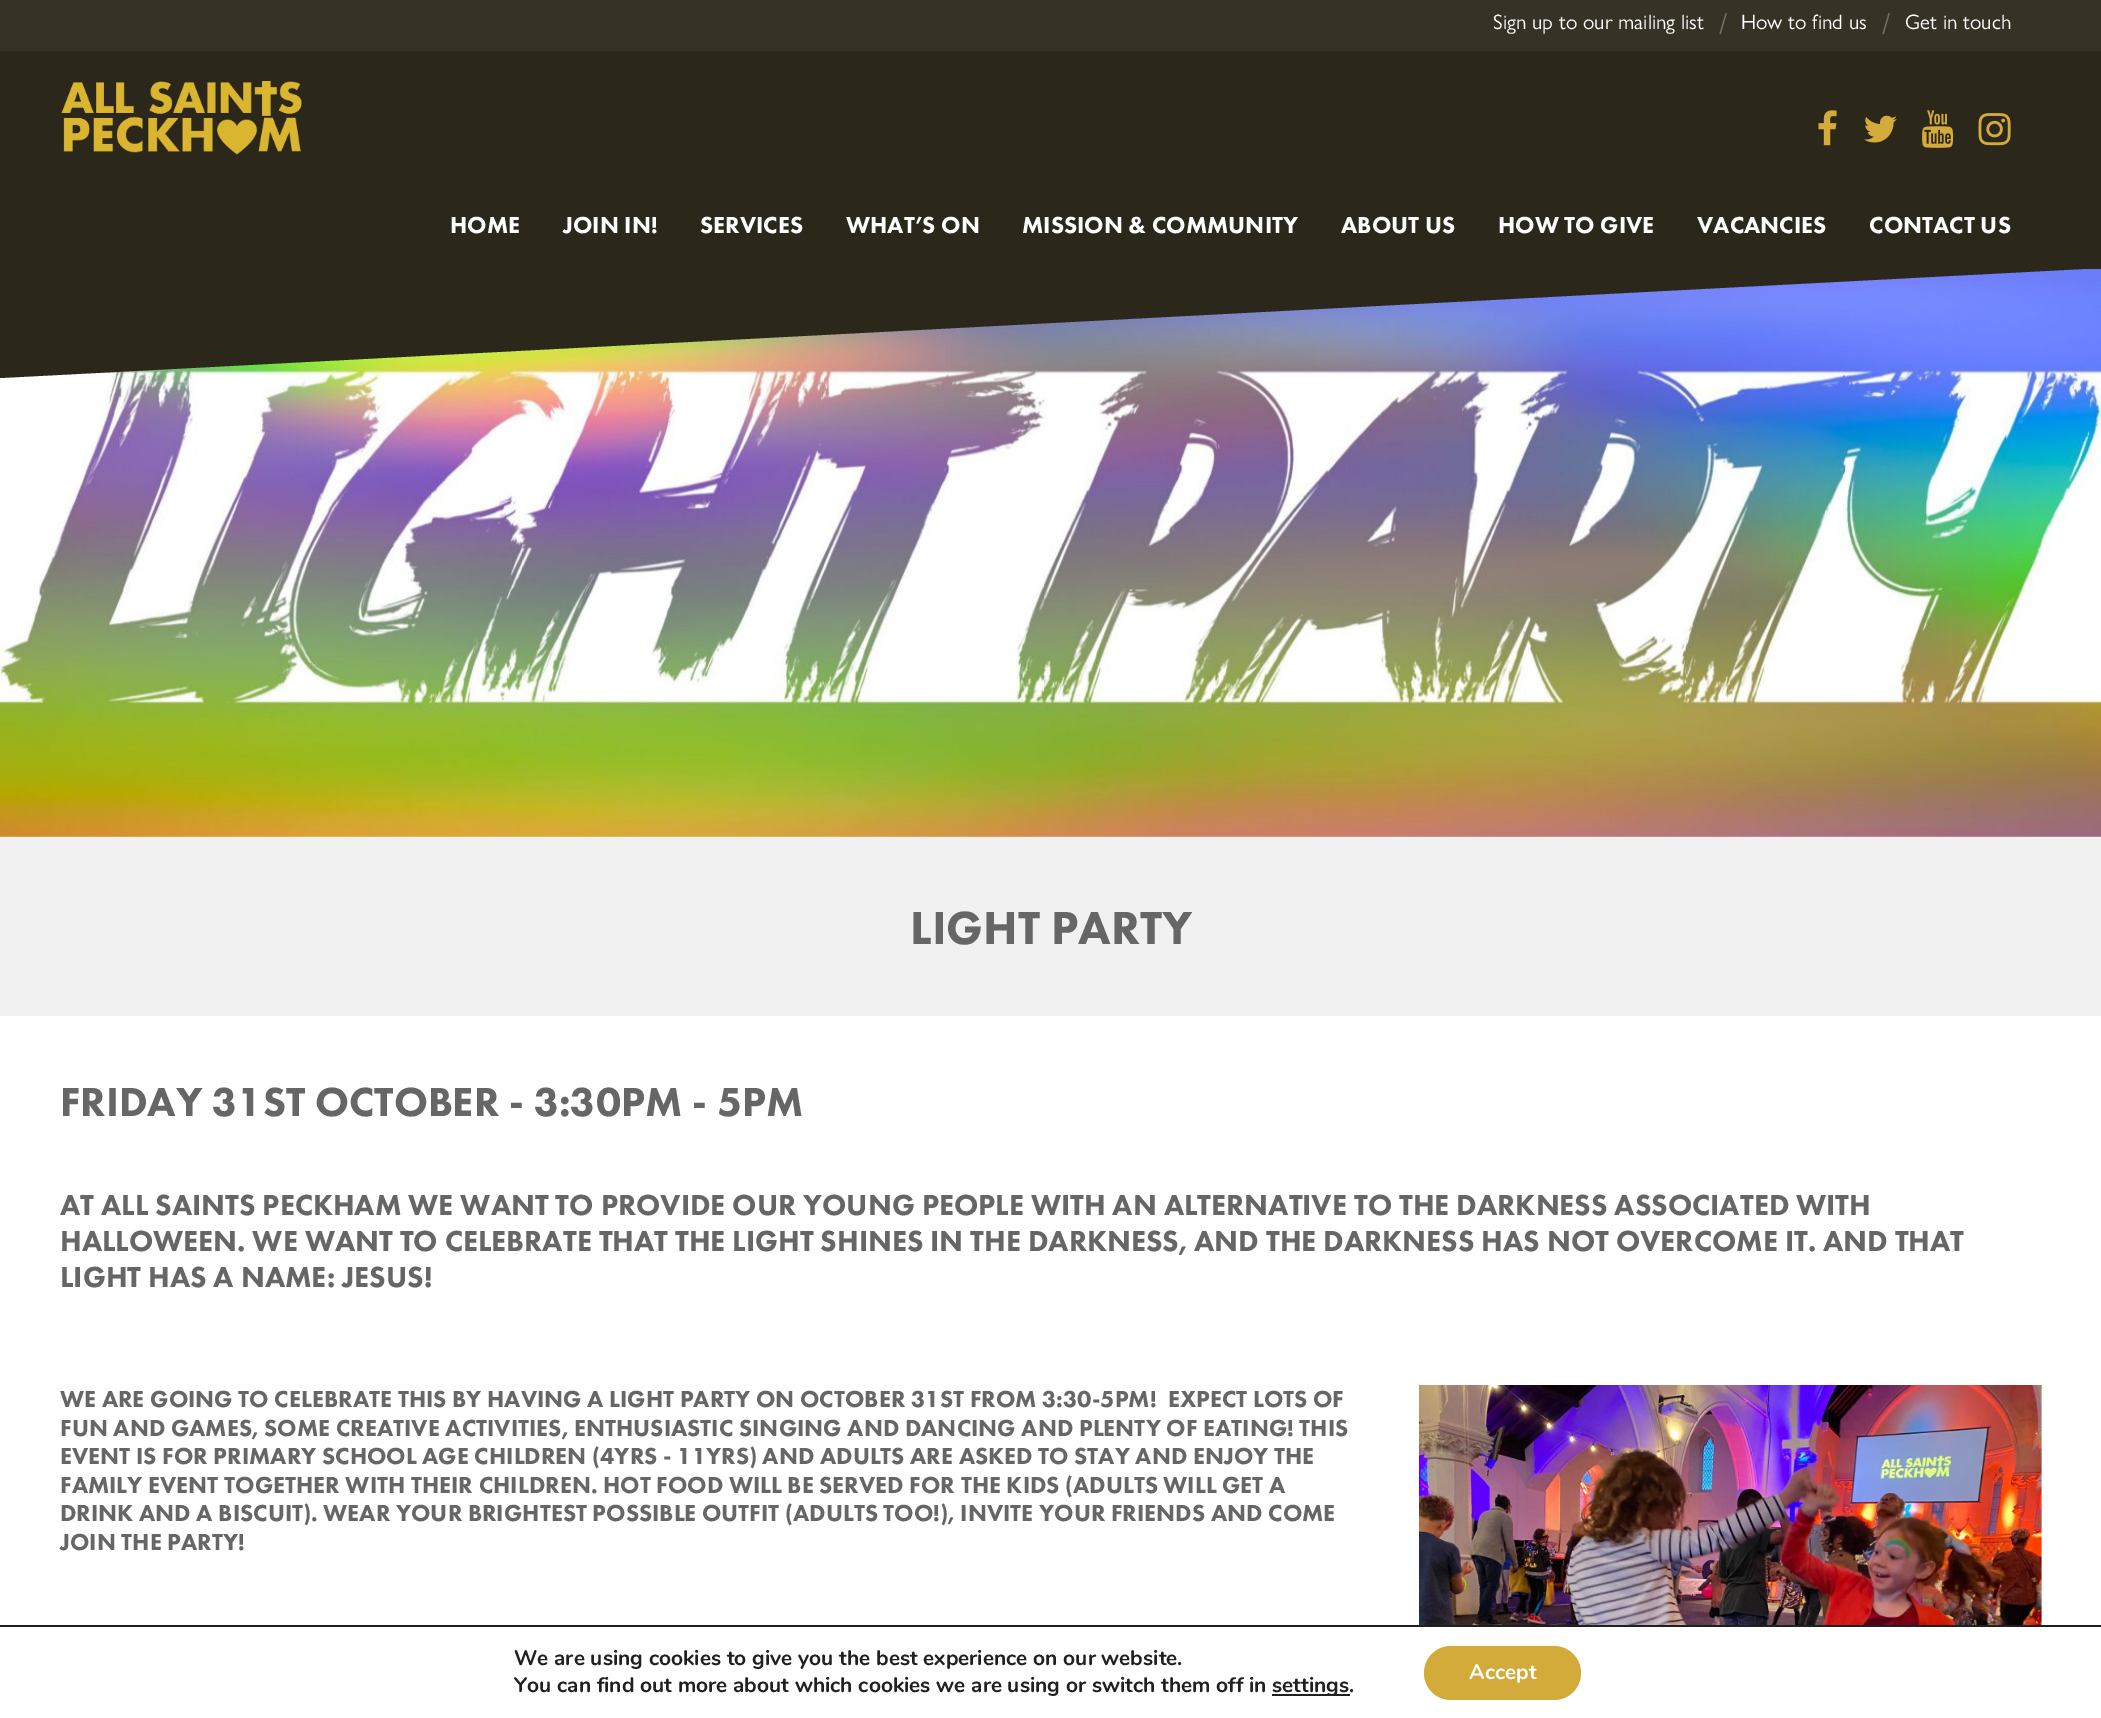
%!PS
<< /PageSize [2101 1718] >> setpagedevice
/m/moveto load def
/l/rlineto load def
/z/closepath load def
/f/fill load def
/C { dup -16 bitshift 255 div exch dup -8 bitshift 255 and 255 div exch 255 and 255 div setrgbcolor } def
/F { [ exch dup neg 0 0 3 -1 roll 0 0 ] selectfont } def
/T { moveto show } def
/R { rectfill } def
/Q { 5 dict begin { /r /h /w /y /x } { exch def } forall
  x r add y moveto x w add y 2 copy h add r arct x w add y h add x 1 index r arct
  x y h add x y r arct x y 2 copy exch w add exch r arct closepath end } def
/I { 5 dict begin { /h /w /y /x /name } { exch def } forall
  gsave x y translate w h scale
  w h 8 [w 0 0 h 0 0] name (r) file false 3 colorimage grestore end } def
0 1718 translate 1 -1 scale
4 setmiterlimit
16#FFFFFF C
0 0 2101 1718 R
16#2C271B C
0 51 2101 218 R
(6.rgb) 0 269 2101 568 I
0 107 m 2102 -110 l 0 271 l -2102 110 l z f
16#373226 C
0 0 2101 51 R
/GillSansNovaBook-Regular 21 F
16#FFFFFF C
(Sign up to our mailing list) 1493 29 T
/GillSansNovaBook-Regular 30 F
16#737067 C
(/) 1719 34 T
/GillSansNovaBook-Regular 21 F
16#FFFFFF C
(How to find us) 1741 29 T
/GillSansNovaBook-Regular 30 F
16#737067 C
(/) 1882 34 T
/GillSansNovaBook-Regular 21 F
16#FFFFFF C
(Get in touch) 1905 29 T
(1.rgb) 61 81 241 74 I
(2.rgb) 1818 110 19 36 I
(3.rgb) 1864 115 33 28 I
(4.rgb) 1922 110 32 38 I
(5.rgb) 1978 113 33 33 I
/FuturaPT-Black 24 F
(HOME) 450 233 T
(JOIN IN!) 563 233 T
(SERVICES) 700 233 T
(WHAT’S ON) 846 233 T
(MISSION & COMMUNITY) 1022 233 T
(ABOUT US) 1341 233 T
(HOW TO GIVE) 1498 233 T
(VACANCIES) 1697 233 T
(CONTACT US) 1869 233 T
16#F1F1F1 C
0 837 2101 179 R
/FuturaPT-Black 48 F
16#666666 C
(LIGHT PARTY) 910 944 T
/FuturaPT-Black 42 F
(FRIDAY 31ST OCTOBER - 3:30PM - 5PM) 60 1116 T
/FuturaPT-Black 30 F
(AT ALL SAINTS PECKHAM WE WANT TO PROVIDE OUR YOUNG PEOPLE WITH AN ALTERNATIVE TO THE DARKNESS ASSOCIATED WITH) 60 1215 T
(HALLOWEEN. WE WANT TO CELEBRATE THAT THE LIGHT SHINES IN THE DARKNESS, AND THE DARKNESS HAS NOT OVERCOME IT. AND THAT) 60 1251 T
(LIGHT HAS A NAME: JESUS!) 60 1287 T
/FuturaPT-Black 24 F
(WE ARE GOING TO CELEBRATE THIS BY HAVING A LIGHT PARTY ON OCTOBER 31ST FROM 3:30-5PM!  EXPECT LOTS OF) 60 1407 T
(FUN AND GAMES, SOME CREATIVE ACTIVITIES, ENTHUSIASTIC SINGING AND DANCING AND PLENTY OF EATING! THIS) 60 1436 T
(EVENT IS FOR PRIMARY SCHOOL AGE CHILDREN \(4YRS - 11YRS\) AND ADULTS ARE ASKED TO STAY AND ENJOY THE) 60 1464 T
(FAMILY EVENT TOGETHER WITH THEIR CHILDREN. HOT FOOD WILL BE SERVED FOR THE KIDS \(ADULTS WILL GET A) 60 1493 T
(DRINK AND A BISCUIT\). WEAR YOUR BRIGHTEST POSSIBLE OUTFIT \(ADULTS TOO!\), INVITE YOUR FRIENDS AND COME) 60 1521 T
(JOIN THE PARTY!) 60 1550 T
(7.rgb) 1419 1385 623 240 I
16#202020 C
0 1625 2101 2 R
/Nunito-Bold 21 F
(We are using cookies to give you the best experience on our website.) 514 1665 T
(You can find out more about which cookies we are using or switch them off in) 514 1692 T
1272 1694 78 2 R
(settings.) 1272 1692 T
16#D3AB3B C
1424 1646 157 54 27 Q f
16#FFFFFF C
(Accept) 1469 1679 T
showpage
